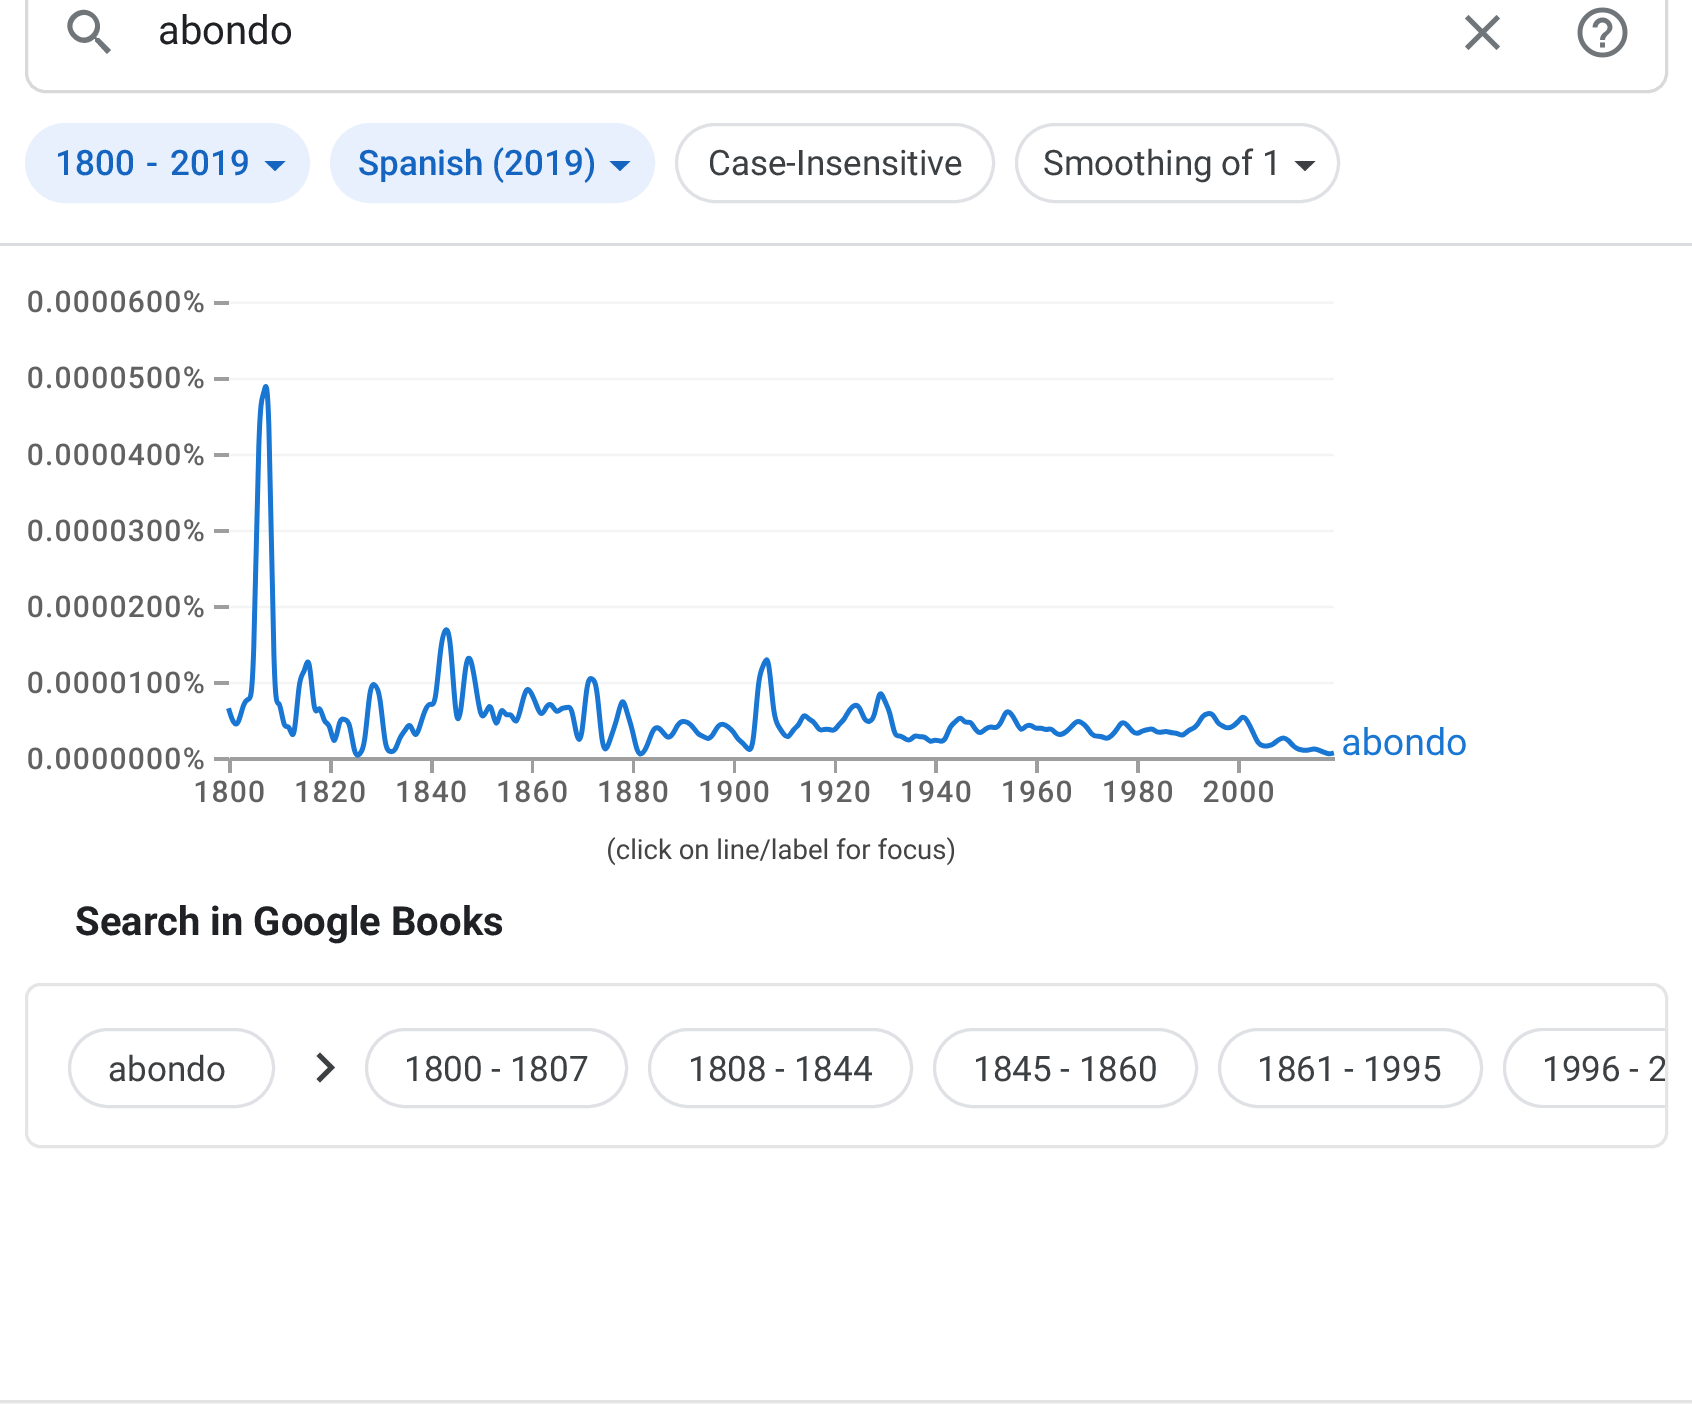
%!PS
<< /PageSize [1692 1404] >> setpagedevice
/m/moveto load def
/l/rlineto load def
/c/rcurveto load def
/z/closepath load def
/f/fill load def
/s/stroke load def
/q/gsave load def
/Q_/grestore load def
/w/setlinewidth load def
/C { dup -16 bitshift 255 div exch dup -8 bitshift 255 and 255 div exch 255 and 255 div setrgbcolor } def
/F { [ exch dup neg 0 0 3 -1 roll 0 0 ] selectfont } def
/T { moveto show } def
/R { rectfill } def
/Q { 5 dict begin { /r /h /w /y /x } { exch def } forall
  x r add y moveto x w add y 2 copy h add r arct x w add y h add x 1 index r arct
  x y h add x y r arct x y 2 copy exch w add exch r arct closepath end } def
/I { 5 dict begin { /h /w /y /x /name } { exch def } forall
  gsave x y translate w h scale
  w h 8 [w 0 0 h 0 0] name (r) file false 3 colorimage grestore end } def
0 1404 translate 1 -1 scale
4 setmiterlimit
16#FFFFFF C
0 0 1692 1404 R
16#D9D9D9 C
3 w
26.5 -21.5 1640 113 18.5 Q s
16#70757A C
76 34 m 10 11 26 -5 16 -16 c -11 -10 -27 6 -16 16 c z 99 38 m 12 12 l -4 4 l -12 -13 l 0 -2 l -1 0 l -15 13 -36 -10 -22 -24 c 15 -15 37 6 24 22 c 1 1 l z f
/Roboto-Regular 40 F
16#202124 C
(abondo) 158 44 T
16#70757A C
1500 18.5 m -14 14 l 14 14 l -3.5 3.5 l -14 -14 l -14 14 l -3.5 -3.5 l 14 -14 l -14 -14 l 3.5 -3.5 l 14 14 l 14 -14 l z f
(1.rgb) 1577 7 51 51 I
16#E8F0FE C
26.5 124.5 282 77 38.5 Q q f Q_
s
/Roboto-Medium 35 F
16#1565C0 C
(1800) 55 175 T
(-) 146 175 T
(2019) 170 175 T
264.5 161 m 21 0 l -10.5 10 l z f
16#E8F0FE C
331.5 124.5 322 77 38.5 Q q f Q_
s
16#1565C0 C
(Spanish \(2019\)) 358 175 T
609.5 161 m 21 0 l -10.5 10 l z f
16#DFE1E5 C
676.5 124.5 317 77 38.5 Q s
/Roboto-Regular 35 F
16#3C4043 C
(Case-Insensitive) 708 175 T
16#DFE1E5 C
1016.5 124.5 322 77 38.5 Q s
16#3C4043 C
(Smoothing of 1) 1043 175 T
1294.5 161 m 21 0 l -10.5 10 l z f
16#DADCE0 C
0 243 1692 3 R
(2.rgb) 28 290 1438 576 I
/Roboto-Bold 40 F
16#202124 C
(Search in Google Books) 75 935 T
16#E5E5E5 C
26.5 984.5 1640 162 13.5 Q s
16#DFE1E5 C
69.5 1029.5 204 77 38.5 Q s
/Roboto-Regular 35 F
16#3C4043 C
(abondo) 108 1081 T
320 1052.5 m 15 15 l -15 15 l -3.5 -3.5 l 11.5 -11.5 l -11.5 -11.5 l z f
16#DFE1E5 C
366.5 1029.5 260 77 38.5 Q s
16#3C4043 C
(1800 - 1807) 404 1081 T
16#DFE1E5 C
649.5 1029.5 262 77 38.5 Q s
16#3C4043 C
(1808 - 1844) 688 1081 T
16#DFE1E5 C
934.5 1029.5 262 77 38.5 Q s
16#3C4043 C
(1845 - 1860) 973 1081 T
16#DFE1E5 C
1219.5 1029.5 262 77 38.5 Q s
16#3C4043 C
(1861 - 1995) 1257 1081 T
16#DFE1E5 C
1543 1028 m -22 0 -40 18 -40 40 c 0 22 18 40 40 40 c 122 0 l 0 -3 l -122 0 l -20 0 -37 -17 -37 -37 c 0 -20 17 -37 37 -37 c 122 0 l 0 -3 l z f
q
28 985 1637 160 13 Q clip newpath
16#3C4043 C
(1996 - 2) 1542 1081 T
Q_
16#F2F2F2 C
0 1403 1692 1 R
16#E4E4E4 C
0 1400 1692 3 R
showpage
